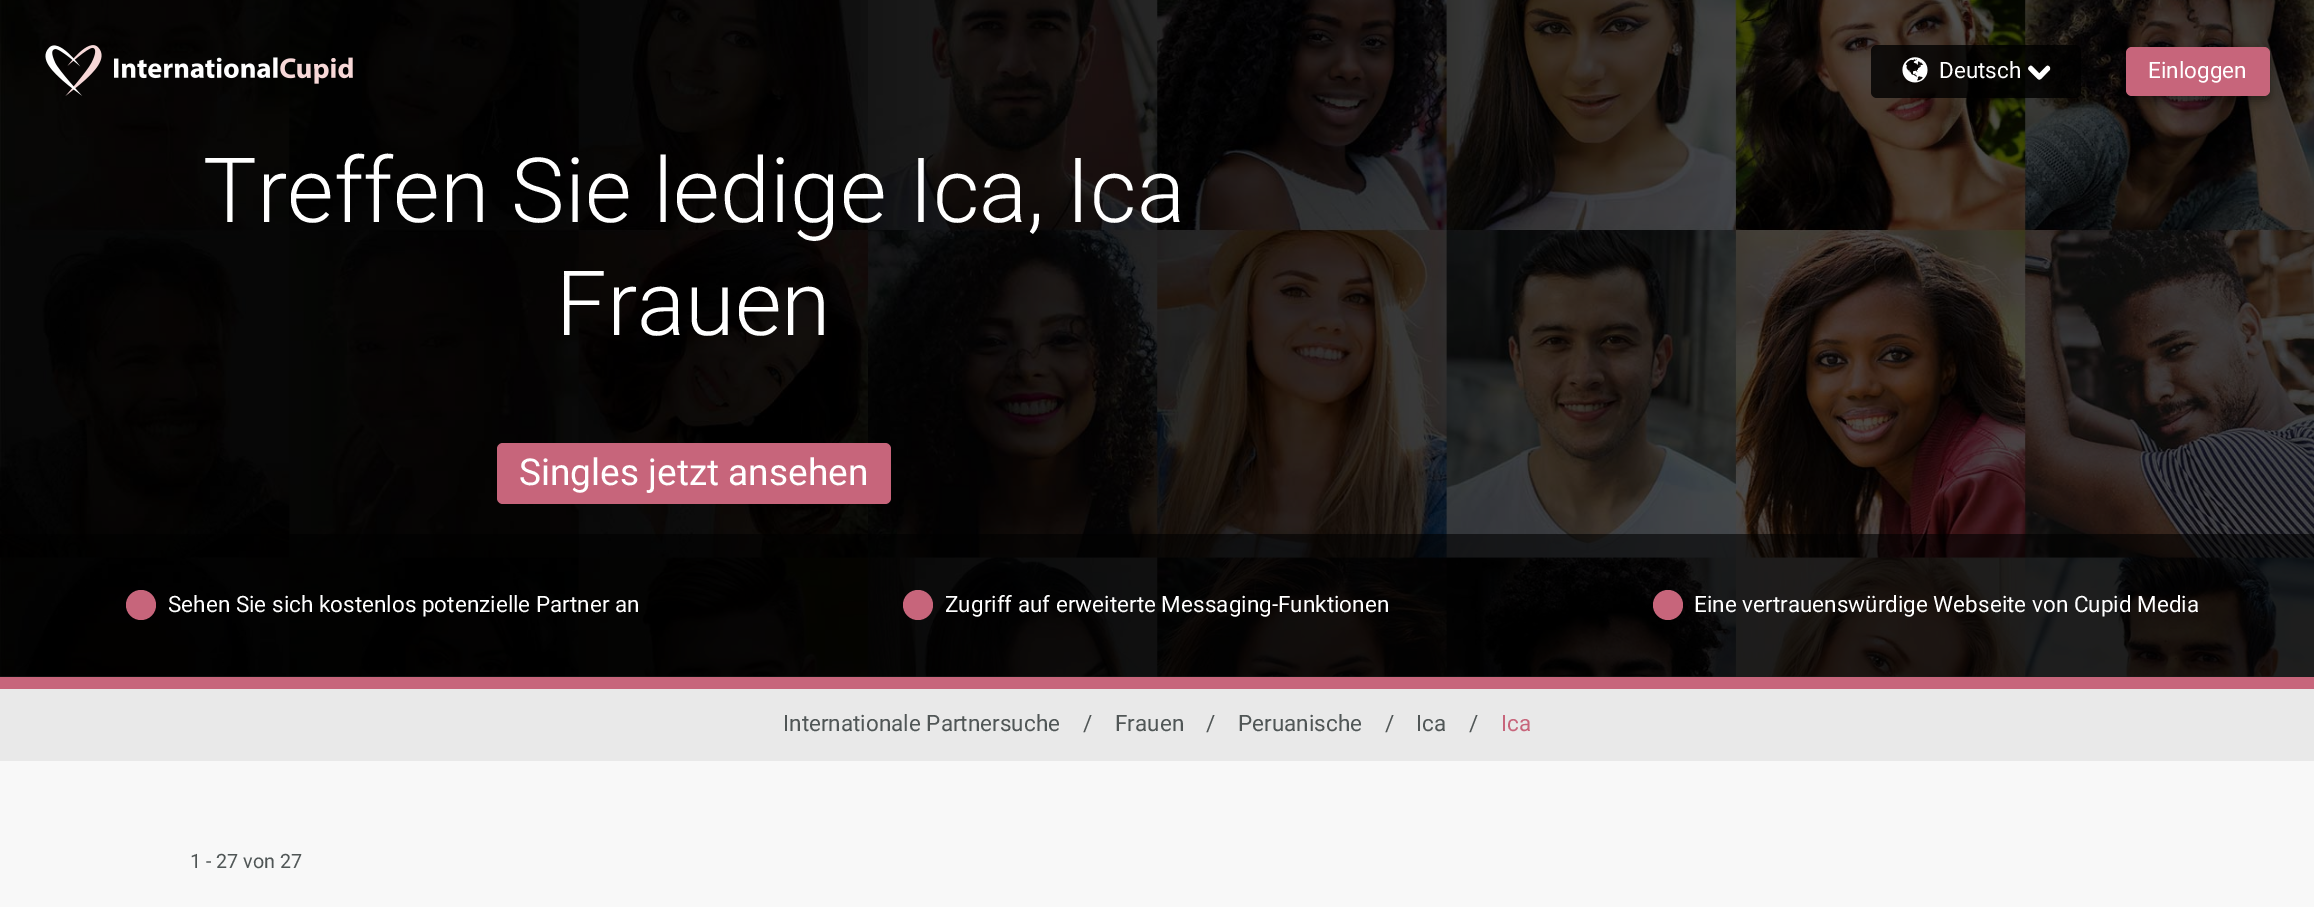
%!PS
<< /PageSize [2314 907] /PageUsesTransparency true >> setpagedevice
/f/fill load def
/C { dup -16 bitshift 255 div exch dup -8 bitshift 255 and 255 div exch 255 and 255 div setrgbcolor } def
/F { [ exch dup neg 0 0 3 -1 roll 0 0 ] selectfont } def
/T { moveto show } def
/R { rectfill } def
/A { dup .setfillconstantalpha .setstrokeconstantalpha } def
/O { newpath 0 360 arc closepath } def
/Q { 5 dict begin { /r /h /w /y /x } { exch def } forall
  x r add y moveto x w add y 2 copy h add r arct x w add y h add x 1 index r arct
  x y h add x y r arct x y 2 copy exch w add exch r arct closepath end } def
/S { 12 dict begin { /a /b /q /h /w /y /x } { exch def } forall gsave /was 0 def
  9 -2 -9 { dup b mul 4 div /e exch def 1 sub .425 mul 2.718 exch exp 1 add a .99 .min exch div /now exch def
    1 1 now sub 1 was sub div sub A /was now def
    w h .min e 2 mul add 0 gt { x e sub y e sub w e 2 mul add h e 2 mul add
      q e add b .6 mul add w h .min 2 div e add .min 0 .max Q fill } if } for grestore end } def
/I { 5 dict begin { /h /w /y /x /name } { exch def } forall
  gsave x y translate w h scale
  w h 8 [w 0 0 h 0 0] name (r) file false 3 colorimage grestore end } def
0 .pushpdf14devicefilter
0 907 translate 1 -1 scale
4 setmiterlimit
16#F8F8F8 C
0 0 2314 907 R
16#4D4D4D C
0 676 2314 1 R
(5.rgb) 0 0 2314 677 I
(1.rgb) 45 45 57 51 I
(2.rgb) 114 57 239 27 I
0.8 A
16#000000 C
1871 45 210 53 6 Q f
1 A
(3.rgb) 1902 57 26 26 I
/Roboto-Regular 22.5 F
16#FFFFFF C
(Deutsch) 1939 78 T
(4.rgb) 2028 65 23 15 I
16#000000 C
2126 51 144 50 6 4.5 .4 S
16#C7657B C
2126 47 144 49 6 Q f
16#FFFFFF C
(Einloggen) 2148 78 T
/Roboto-Light 90 F
(Treffen Sie ledige Ica, Ica) 203 222 T
(Frauen) 556 335 T
16#C7657B C
497 443 394 61 6 Q f
/Roboto-Regular 37 F
16#FFFFFF C
(Singles jetzt ansehen) 519 485 T
0.6 A
16#000000 C
0 534 2314 143 R
1 A
16#C7657B C
141 605 15 O f
/Roboto-Regular 22.5 F
16#FFFFFF C
(Sehen Sie sich kostenlos potenzielle Partner an) 168 612 T
16#C7657B C
918 605 15 O f
16#FFFFFF C
(Zugriff auf erweiterte Messaging-Funktionen) 945 612 T
16#C7657B C
1668 605 15 O f
16#FFFFFF C
(Eine vertrauenswürdige Webseite von Cupid Media) 1694 612 T
16#C7657B C
0 677 2314 12 R
16#E9E9E9 C
0 689 2314 72 R
16#505656 C
(Internationale Partnersuche) 783 731 T
(/) 1083 731 T
(Frauen) 1115 731 T
(/) 1206 731 T
(Peruanische) 1238 731 T
(/) 1385 731 T
(Ica) 1416 731 T
(/) 1469 731 T
16#C7657B C
(Ica) 1501 731 T
/Roboto-Regular 19.75 F
16#505656 C
(1 - 27 von 27) 190 868 T
.poppdf14devicefilter showpage
